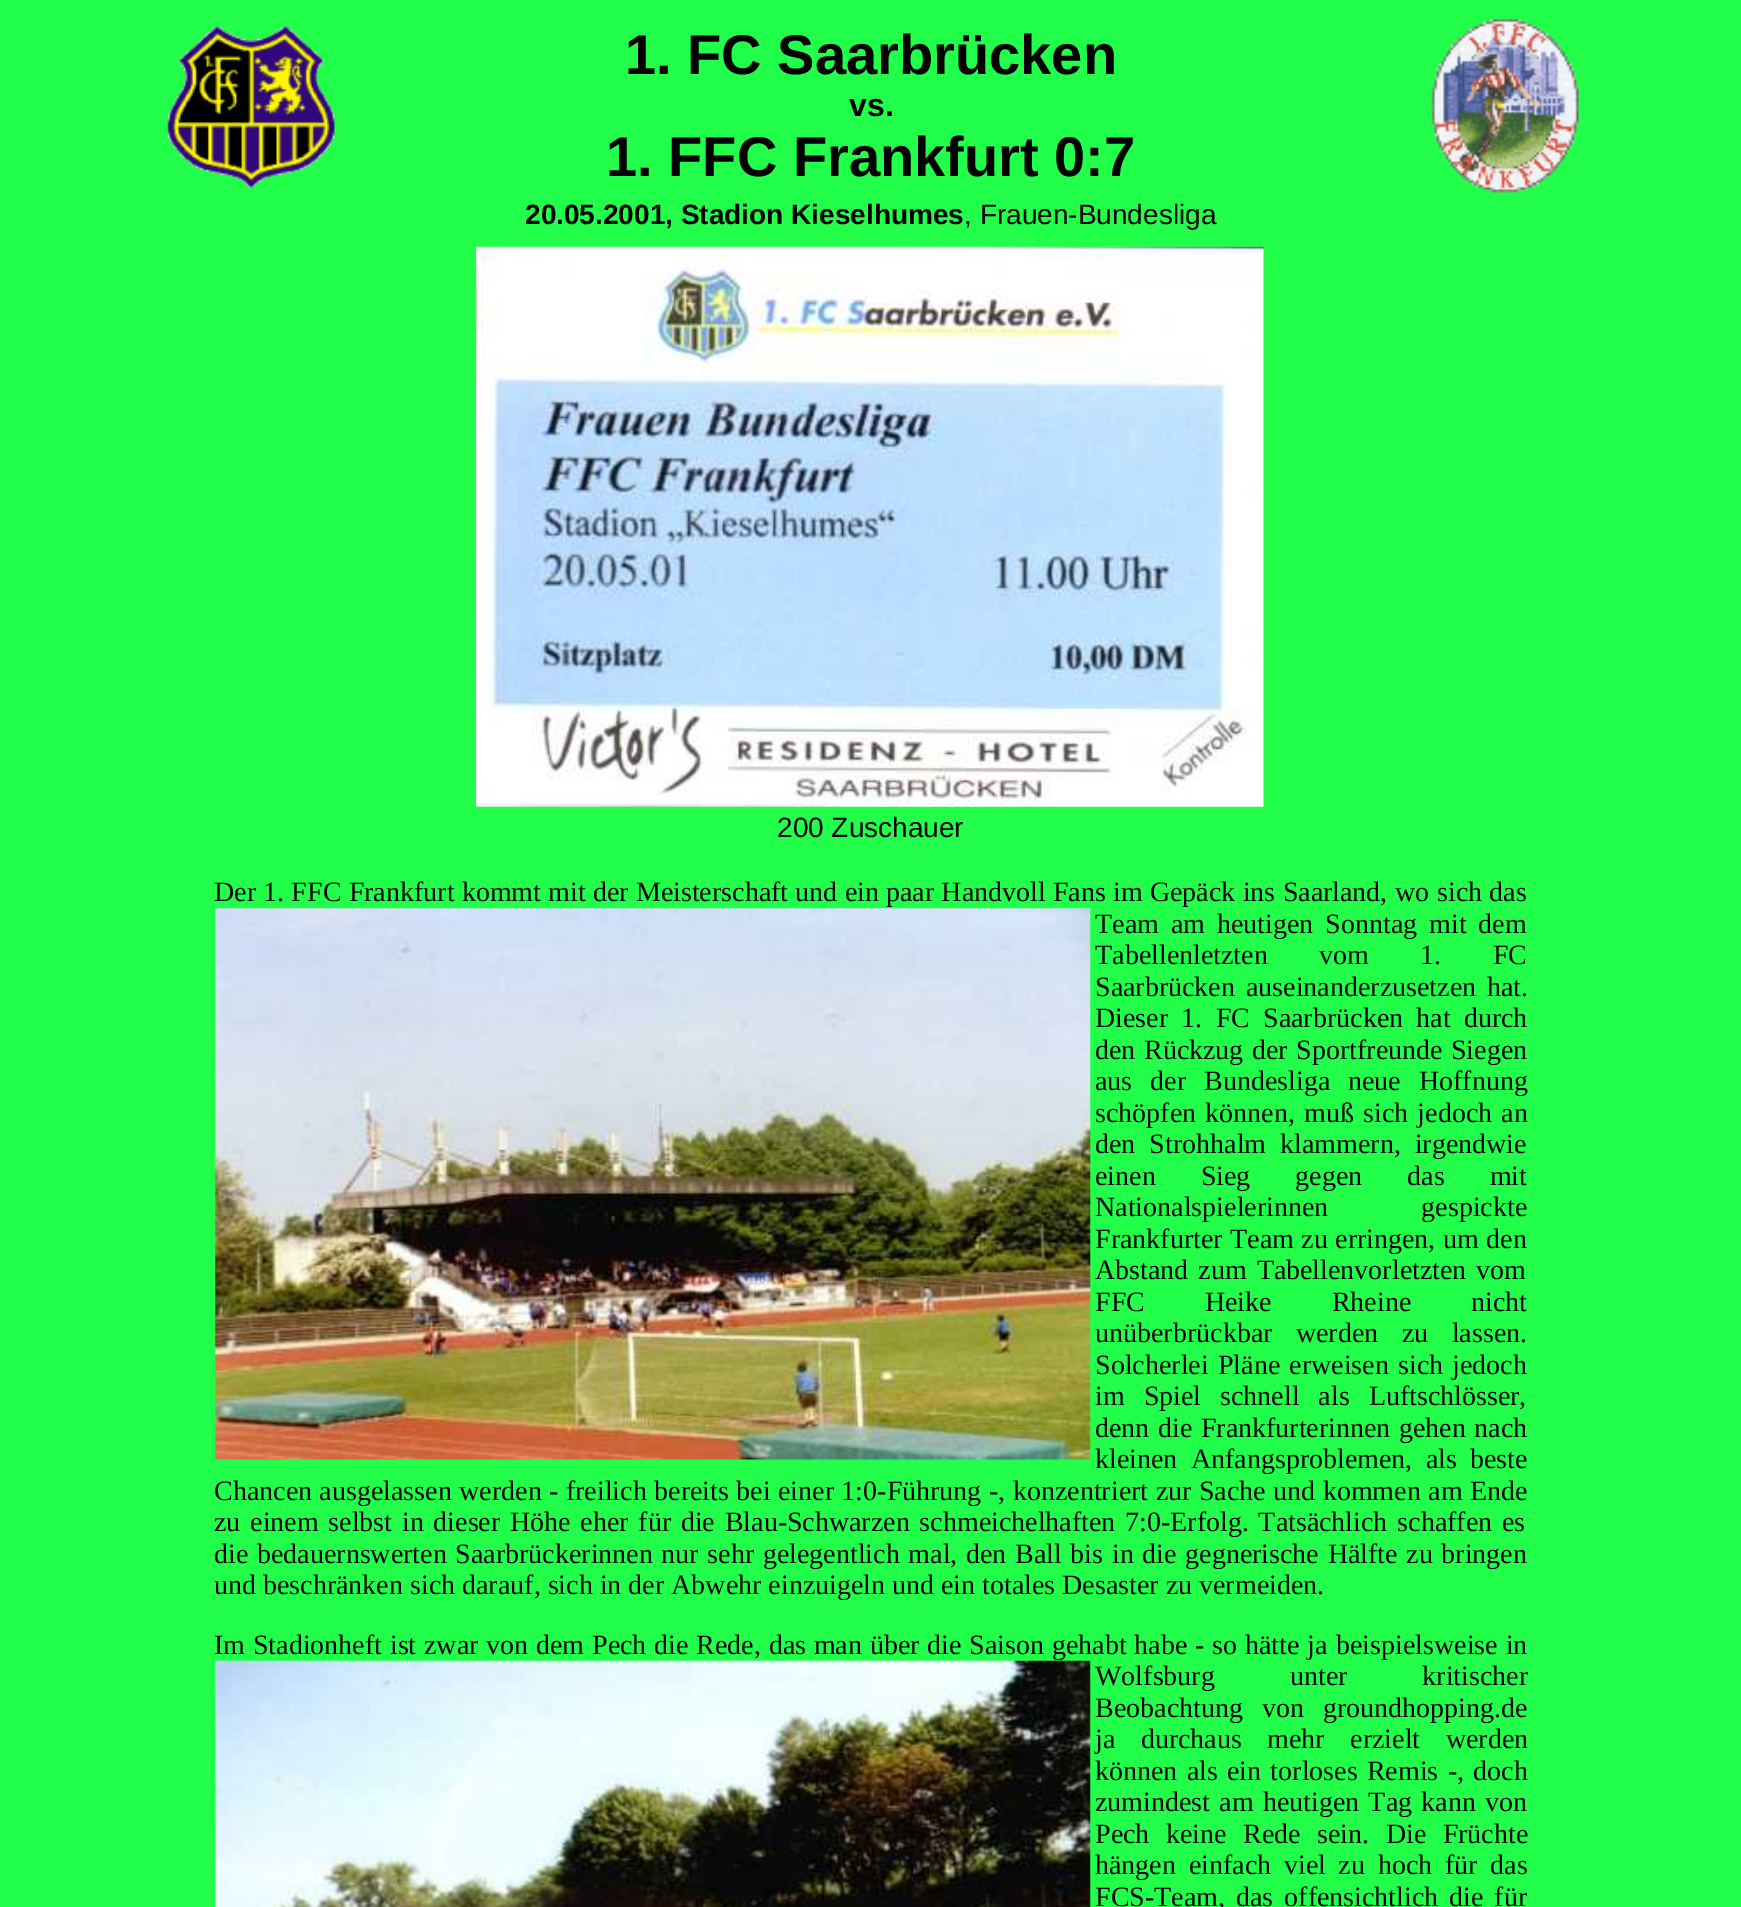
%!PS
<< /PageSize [1741 1907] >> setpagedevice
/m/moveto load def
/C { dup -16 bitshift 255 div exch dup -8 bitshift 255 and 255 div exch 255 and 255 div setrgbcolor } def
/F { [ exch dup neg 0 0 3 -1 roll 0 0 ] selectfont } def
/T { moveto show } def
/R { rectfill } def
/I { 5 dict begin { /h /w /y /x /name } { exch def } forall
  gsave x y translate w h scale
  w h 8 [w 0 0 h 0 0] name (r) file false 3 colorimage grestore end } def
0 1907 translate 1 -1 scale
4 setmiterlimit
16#21FF4A C
0 0 1741 1907 R
(1.rgb) 167 25 168 163 I
/LiberationSans-Bold 56 F
16#000000 C
(1. FC Saarbrücken) 625 74 T
/LiberationSans-Bold 32 F
(vs.) 849 116 T
/LiberationSans-Bold 56 F
(1. FFC Frankfurt 0:7) 606 176 T
(2.rgb) 1431 19 148 174 I
/LiberationSans-Bold 28 F
(20.05.2001, Stadion Kieselhumes) 525 224 T
/LiberationSans-Regular 28 F
(, Frauen-Bundesliga) 964 224 T
(3.rgb) 476 246 788 561 I
(200 Zuschauer) 777 837 T
/LiberationSerif-Regular 28 F
214 901 m .25 0 32 (Der 1. FFC Frankfurt kommt mit der Meisterschaft und ein paar Handvoll Fans im Gepäck ins Saarland, wo) widthshow
(sich das) 1437 901 T
(4.rgb) 215 908 876 552 I
1095 933 m 5 0 32 (Team am heutigen Sonntag mit dem) widthshow
1095 964 m 44.5 0 32 (Tabellenletzten vom 1. FC) widthshow
1095 996 m 4 0 32 (Saarbrücken auseinanderzusetzen hat.) widthshow
1095 1027 m 6.25 0 32 (Dieser 1. FC Saarbrücken hat durch) widthshow
1095 1059 m 1.5 0 32 (den Rückzug der Sportfreunde Siegen) widthshow
1095 1090 m 11 0 32 (aus der Bundesliga neue Hoffnung) widthshow
1095 1122 m 2.25 0 32 (schöpfen können, muß sich jedoch an) widthshow
1095 1153 m 7 0 32 (den Strohhalm klammern, irgendwie) widthshow
1095 1185 m 38 0 32 (einen Sieg gegen das mit) widthshow
1095 1216 m 86 0 32 (Nationalspielerinnen gespickte) widthshow
1095 1248 m .5 0 32 (Frankfurter Team zu erringen, um den) widthshow
1095 1279 m 3 0 32 (Abstand zum Tabellenvorletzten vom) widthshow
1095 1311 m 53 0 32 (FFC Heike Rheine nicht) widthshow
1095 1342 m 16.5 0 32 (unüberbrückbar werden zu lassen.) widthshow
1095 1374 m 2.25 0 32 (Solcherlei Pläne erweisen sich jedoch) widthshow
1095 1405 m 12 0 32 (im Spiel schnell als Luftschlösser,) widthshow
1095 1437 m 1.5 0 32 (denn die Frankfurterinnen gehen nach) widthshow
1095 1468 m 6.25 0 32 (kleinen Anfangsproblemen, als beste) widthshow
214 1500 m .5 0 32 (Chancen ausgelassen werden - freilich bereits bei einer 1:0-Führung -, konzentriert zur Sache und kommen am Ende) widthshow
214 1531 m 2.75 0 32 (zu einem selbst in dieser Höhe eher für die Blau-Schwarzen schmeichelhaften 7:0-Erfolg. Tatsächlich schaffen es) widthshow
214 1563 m 1.7 0 32 (die bedauernswerten Saarbrückerinnen nur sehr gelegentlich mal, den Ball bis in die gegnerische Hälfte zu bringen) widthshow
(und beschränken sich darauf, sich in der Abwehr einzuigeln und ein totales Desaster zu vermeiden.) 214 1594 T
(5.rgb) 215 1660 876 247 I
214 1654 m .8 0 32 (Im Stadionheft ist zwar von dem Pech die Rede, das man über die Saison gehabt habe - so hätte ja) widthshow
1336 1654 m 1 0 32 (beispielsweise in) widthshow
1095 1685 m 68 0 32 (Wolfsburg unter kritischer) widthshow
1095 1717 m 12 0 32 (Beobachtung von groundhopping.de) widthshow
1095 1748 m 18.5 0 32 (ja durchaus mehr erzielt werden) widthshow
1095 1780 m 2.25 0 32 (können als ein torloses Remis -, doch) widthshow
1095 1811 m 2.25 0 32 (zumindest am heutigen Tag kann von) widthshow
1095 1843 m 9.5 0 32 (Pech keine Rede sein. Die Früchte) widthshow
1095 1874 m 5.75 0 32 (hängen einfach viel zu hoch für das) widthshow
1095 1906 m 4 0 32 (FCS-Team, das offensichtlich die für) widthshow
showpage
